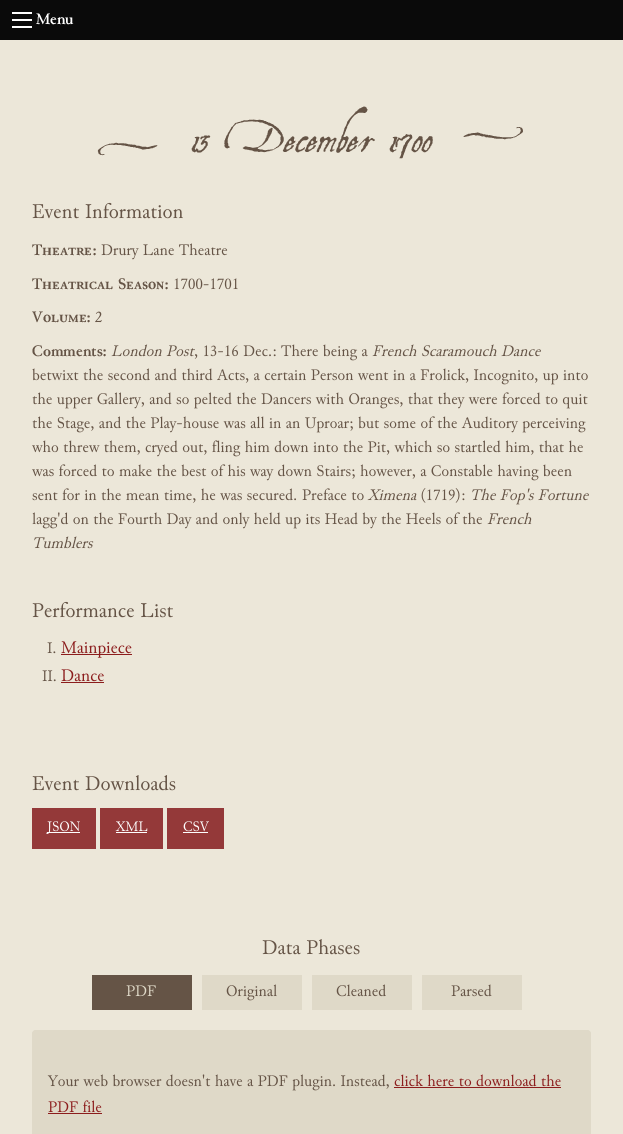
%!PS
<< /PageSize [623 1134] >> setpagedevice
/m/moveto load def
/f/fill load def
/q/gsave load def
/Q_/grestore load def
/C { dup -16 bitshift 255 div exch dup -8 bitshift 255 and 255 div exch 255 and 255 div setrgbcolor } def
/F { [ exch dup neg 0 0 3 -1 roll 0 0 ] selectfont } def
/T { moveto show } def
/R { rectfill } def
/Q { 5 dict begin { /r /h /w /y /x } { exch def } forall
  x r add y moveto x w add y 2 copy h add r arct x w add y h add x 1 index r arct
  x y h add x y r arct x y 2 copy exch w add exch r arct closepath end } def
/I { 5 dict begin { /h /w /y /x /name } { exch def } forall
  gsave x y translate w h scale
  w h 8 [w 0 0 h 0 0] name (r) file false 3 colorimage grestore end } def
0 1134 translate 1 -1 scale
4 setmiterlimit
16#0A0A0A C
0 0 623 1134 R
16#FEFEFE C
12 26 20 2 R
12 19 20 2 R
12 12 20 2 R
/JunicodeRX-Bold 16 F
(Menu) 36 24 T
16#ECE7D9 C
0 40 623 1094 R
/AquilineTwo-Medium 40 F
16#655446 C
(13 December 1700) 191 152 T
(‰) 464 129 T
q 157 153 translate 180 rotate 0 0 m (‰) show Q_
(1.rgb) 32 202 151 17 I
/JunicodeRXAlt-Bold 16 F
(Theatre:) 32 255 T
(2.rgb) 101 243 127 17 I
(Theatrical Season:) 32 289 T
(3.rgb) 174 278 64 12 I
(Volume:) 32 322 T
(4.rgb) 95 311 7 12 I
/JunicodeRX-Bold 16 F
(Comments:) 32 356 T
(5.rgb) 111 344 84 13 I
(6.rgb) 194 344 174 17 I
(7.rgb) 372 344 169 13 I
(8.rgb) 32 368 556 17 I
(9.rgb) 32 392 556 17 I
(10.rgb) 32 416 554 17 I
(11.rgb) 32 440 551 17 I
(12.rgb) 32 464 540 17 I
(13.rgb) 32 488 264 15 I
(14.rgb) 302 488 62 13 I
(15.rgb) 367 489 50 12 I
(16.rgb) 421 488 44 15 I
(17.rgb) 472 488 117 17 I
(18.rgb) 32 512 450 17 I
(19.rgb) 487 512 45 13 I
(20.rgb) 34 536 60 13 I
(21.rgb) 32 601 141 17 I
(22.rgb) 47 642 9 12 I
16#8C1D1D C
61 654 71 1 R
(23.rgb) 61 641 71 17 I
(24.rgb) 42 670 14 12 I
(25.rgb) 61 669 43 13 I
61 682 43 1 R
(26.rgb) 32 775 144 16 I
16#943939 C
32 808 64 41 R
16#FEFEFE C
47 832 33 1 R
(27.rgb) 46 821 34 13 I
16#943939 C
100 808 63 41 R
(28.rgb) 115 821 33 11 I
16#FEFEFE C
116 832 31 1 R
16#943939 C
167 808 57 41 R
(29.rgb) 183 821 26 11 I
16#FEFEFE C
183 832 25 1 R
(30.rgb) 262 939 98 16 I
16#655446 C
92 975 100 35 R
(31.rgb) 126 985 30 12 I
16#DFD9C8 C
202 975 100 35 R
(32.rgb) 226 984 51 17 I
312 975 100 35 R
(33.rgb) 336 984 50 13 I
422 975 100 35 R
(34.rgb) 451 984 41 13 I
32 1030 559 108 4 Q f
(35.rgb) 47 1074 342 17 I
(36.rgb) 394 1074 167 13 I
16#8C1D1D C
394 1087 167 1 R
(37.rgb) 48 1100 54 13 I
48 1113 54 1 R
showpage
